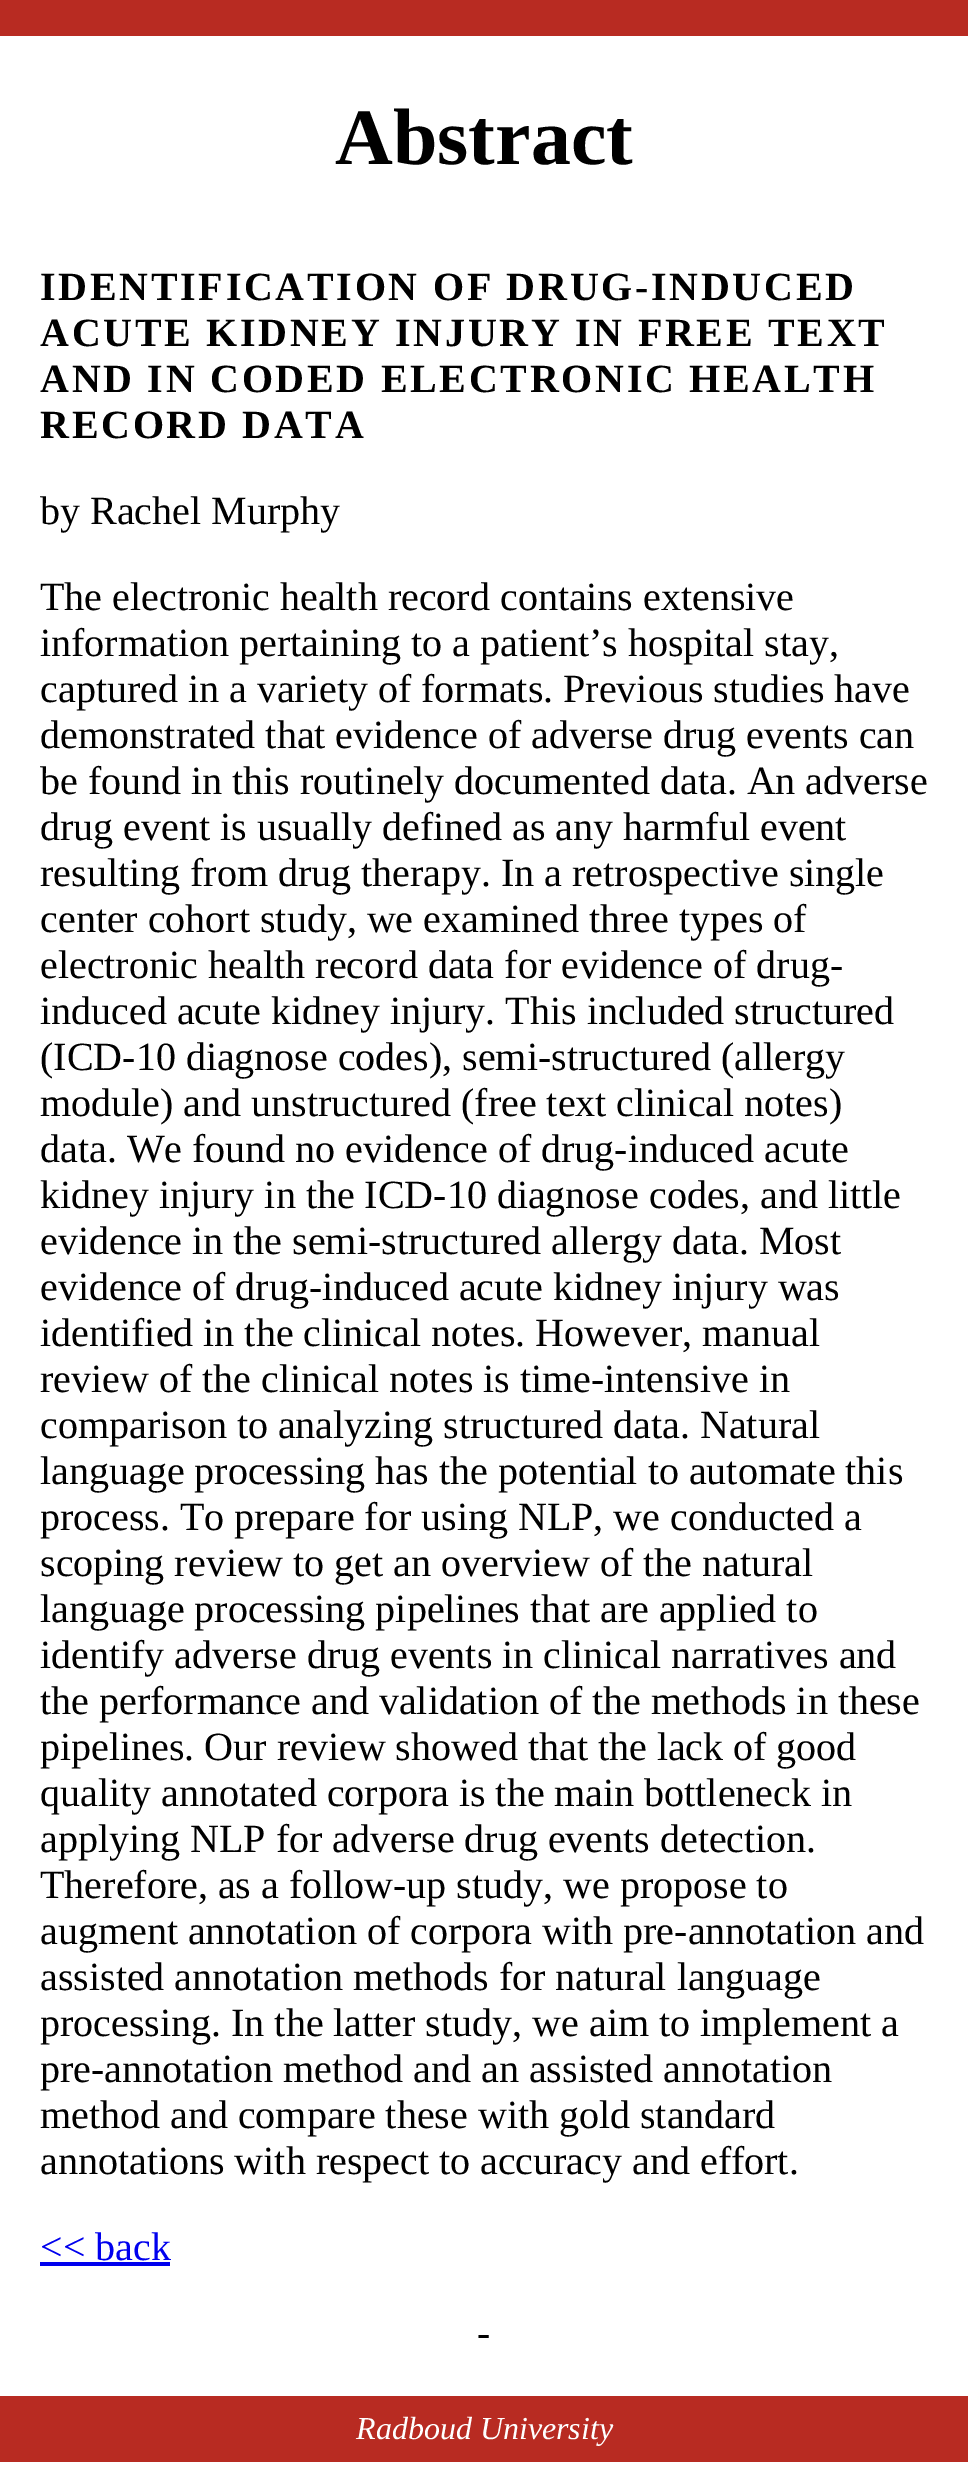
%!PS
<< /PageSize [968 2477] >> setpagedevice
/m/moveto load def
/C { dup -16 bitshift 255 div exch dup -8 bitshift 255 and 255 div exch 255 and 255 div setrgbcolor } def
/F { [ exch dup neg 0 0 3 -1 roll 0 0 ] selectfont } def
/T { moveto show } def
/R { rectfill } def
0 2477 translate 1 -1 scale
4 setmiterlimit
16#FFFFFF C
0 0 968 2477 R
16#B82B22 C
0 0 968 36 R
/LiberationSerif-Bold 80 F
16#000000 C
(Abstract) 335 164 T
/LiberationSerif-Bold 40 F
40 300 m 2.7 0 (IDENTIFICATION OF DRUG-INDUCED) ashow
40 346 m 2.7 0 (ACUTE KIDNEY INJURY IN FREE TEXT) ashow
40 392 m 2.7 0 (AND IN CODED ELECTRONIC HEALTH) ashow
40 438 m 2.7 0 (RECORD DATA) ashow
/LiberationSerif-Regular 40 F
(by Rachel Murphy) 40 524 T
(The electronic health record contains extensive) 40 610 T
(information pertaining to a patient’s hospital stay,) 40 656 T
(captured in a variety of formats. Previous studies have) 40 702 T
(demonstrated that evidence of adverse drug events can) 40 748 T
(be found in this routinely documented data. An adverse) 40 794 T
(drug event is usually defined as any harmful event) 40 840 T
(resulting from drug therapy. In a retrospective single) 40 886 T
(center cohort study, we examined three types of) 40 932 T
(electronic health record data for evidence of drug-) 40 978 T
(induced acute kidney injury. This included structured) 40 1024 T
(\(ICD-10 diagnose codes\), semi-structured \(allergy) 40 1070 T
(module\) and unstructured \(free text clinical notes\)) 40 1116 T
(data. We found no evidence of drug-induced acute) 40 1162 T
(kidney injury in the ICD-10 diagnose codes, and little) 40 1208 T
(evidence in the semi-structured allergy data. Most) 40 1254 T
(evidence of drug-induced acute kidney injury was) 40 1300 T
(identified in the clinical notes. However, manual) 40 1346 T
(review of the clinical notes is time-intensive in) 40 1392 T
(comparison to analyzing structured data. Natural) 40 1438 T
(language processing has the potential to automate this) 40 1484 T
(process. To prepare for using NLP, we conducted a) 40 1530 T
(scoping review to get an overview of the natural) 40 1576 T
(language processing pipelines that are applied to) 40 1622 T
(identify adverse drug events in clinical narratives and) 40 1668 T
(the performance and validation of the methods in these) 40 1714 T
(pipelines. Our review showed that the lack of good) 40 1760 T
(quality annotated corpora is the main bottleneck in) 40 1806 T
(applying NLP for adverse drug events detection.) 40 1852 T
(Therefore, as a follow-up study, we propose to) 40 1898 T
(augment annotation of corpora with pre-annotation and) 40 1944 T
(assisted annotation methods for natural language) 40 1990 T
(processing. In the latter study, we aim to implement a) 40 2036 T
(pre-annotation method and an assisted annotation) 40 2082 T
(method and compare these with gold standard) 40 2128 T
(annotations with respect to accuracy and effort.) 40 2174 T
16#0000EE C
(<< back) 40 2260 T
40 2262 130 4 R
16#000000 C
(-) 477 2346 T
16#B82B22 C
0 2396 968 66 R
/LiberationSerif-Italic 32 F
16#FFFFFF C
(Radboud University) 356 2439 T
showpage
